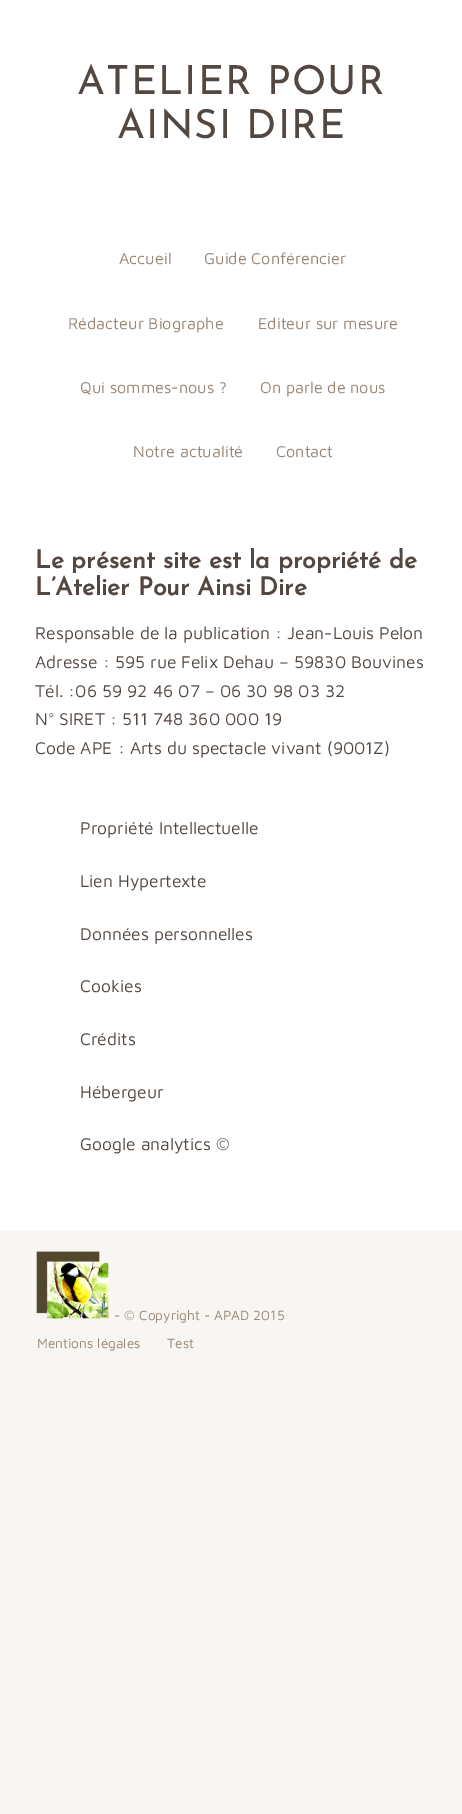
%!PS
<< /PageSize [462 1814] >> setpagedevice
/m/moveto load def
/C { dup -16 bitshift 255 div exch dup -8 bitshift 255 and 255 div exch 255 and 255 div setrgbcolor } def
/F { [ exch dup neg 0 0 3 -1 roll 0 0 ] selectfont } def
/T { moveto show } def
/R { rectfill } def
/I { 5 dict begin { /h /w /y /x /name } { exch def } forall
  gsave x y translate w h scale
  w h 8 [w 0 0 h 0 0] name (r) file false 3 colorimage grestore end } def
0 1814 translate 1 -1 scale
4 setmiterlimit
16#F8F6F2 C
0 0 462 1814 R
16#FFFFFF C
0 0 462 1230 R
/JosefinSans-Thin 40 F
16#534741 C
77 94 m 1.25 0 (ATELIER POUR) ashow
117 138 m 1.25 0 (AINSI DIRE) ashow
/MavenPro-Regular 16.25 F
16#998675 C
(Accueil) 119 264 T
(Guide Conférencier) 204 264 T
(Rédacteur Biographe) 68 329 T
(Editeur sur mesure) 258 329 T
(Qui sommes-nous ?) 80 393 T
(On parle de nous) 260 393 T
(Notre actualité) 133 457 T
(Contact) 276 457 T
/JosefinSans-Bold 25 F
16#534741 C
(Le présent site est la propriété de) 35 568 T
(L’Atelier Pour Ainsi Dire) 35 595 T
/MavenPro-Regular 17.5 F
(Responsable de la publication : Jean-Louis Pelon) 35 639 T
(Adresse : 595 rue Felix Dehau – 59830 Bouvines) 35 668 T
(Tél. :06 59 92 46 07 – 06 30 98 03 32) 35 697 T
(N° SIRET : 511 748 360 000 19) 35 725 T
(Code APE : Arts du spectacle vivant \(9001Z\)) 35 754 T
(Propriété Intellectuelle) 80 834 T
(Lien Hypertexte) 80 887 T
(Données personnelles) 80 940 T
(Cookies) 80 992 T
(Crédits) 80 1045 T
(Hébergeur) 80 1098 T
(Google analytics ©) 80 1150 T
(1.rgb) 36 1251 73 68 I
/MavenPro-Regular 13.75 F
16#998675 C
(- © Copyright - APAD 2015) 114 1320 T
(Mentions légales) 37 1348 T
(Test) 167 1348 T
showpage
